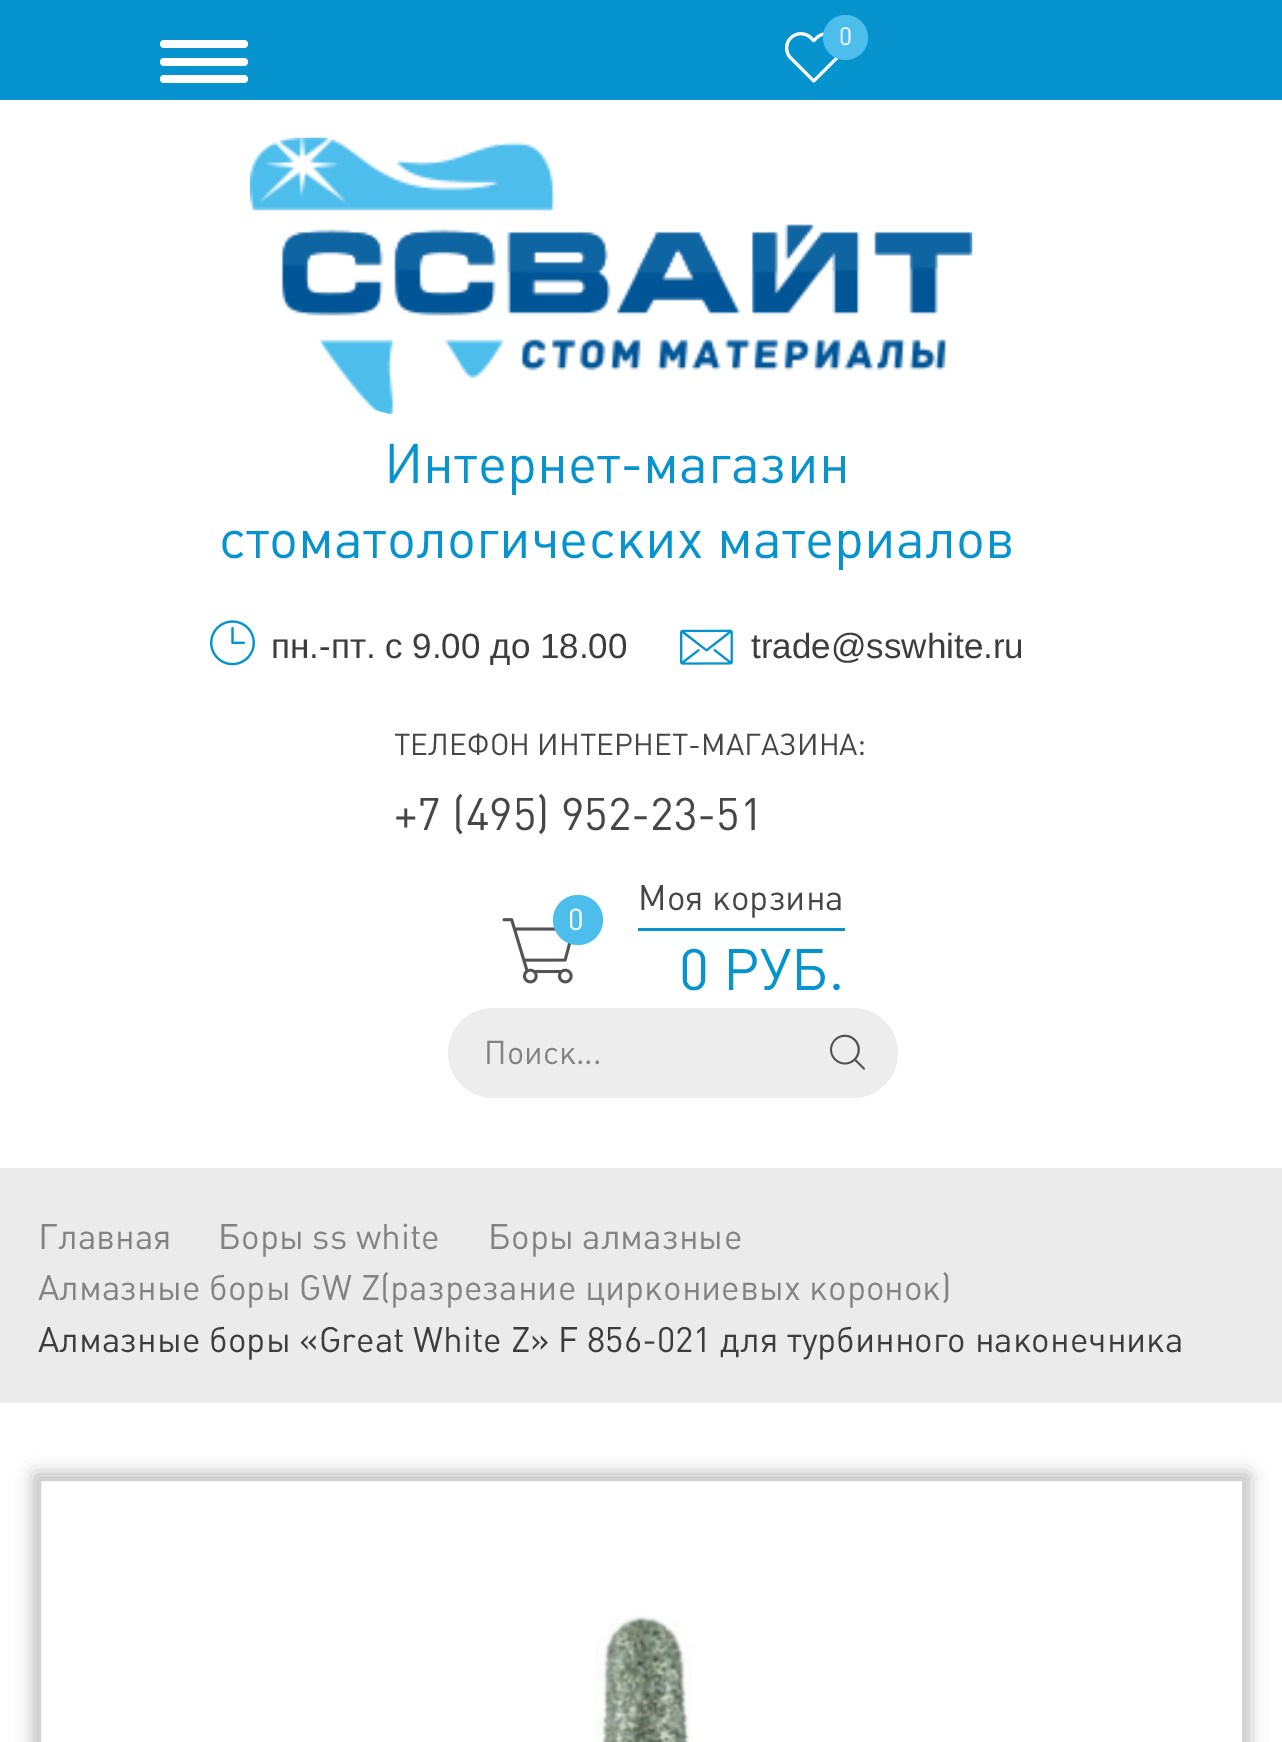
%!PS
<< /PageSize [1282 1742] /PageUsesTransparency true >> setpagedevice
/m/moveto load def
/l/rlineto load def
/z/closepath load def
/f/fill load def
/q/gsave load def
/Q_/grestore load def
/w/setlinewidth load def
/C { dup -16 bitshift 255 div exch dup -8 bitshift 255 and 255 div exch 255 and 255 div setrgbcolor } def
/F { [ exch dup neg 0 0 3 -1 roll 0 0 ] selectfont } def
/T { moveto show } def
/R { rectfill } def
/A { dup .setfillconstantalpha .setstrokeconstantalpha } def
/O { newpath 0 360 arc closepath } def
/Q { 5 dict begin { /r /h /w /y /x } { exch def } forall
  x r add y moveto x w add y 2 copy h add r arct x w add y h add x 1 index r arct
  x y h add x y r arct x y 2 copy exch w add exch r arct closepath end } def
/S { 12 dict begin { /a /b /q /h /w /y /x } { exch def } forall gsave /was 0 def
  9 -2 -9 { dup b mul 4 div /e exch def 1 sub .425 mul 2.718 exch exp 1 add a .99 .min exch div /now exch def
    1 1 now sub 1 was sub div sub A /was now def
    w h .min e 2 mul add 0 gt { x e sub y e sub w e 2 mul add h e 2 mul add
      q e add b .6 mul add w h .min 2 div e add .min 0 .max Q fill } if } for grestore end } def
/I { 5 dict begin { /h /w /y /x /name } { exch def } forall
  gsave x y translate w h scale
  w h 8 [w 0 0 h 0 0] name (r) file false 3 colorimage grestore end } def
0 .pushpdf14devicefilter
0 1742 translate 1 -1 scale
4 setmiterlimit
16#FFFFFF C
0 0 1282 1742 R
16#0793CD C
0 0 1282 100 R
(1.rgb) 785 32 54 51 I
16#4DBDEC C
845.5 37.5 22.5 O f
/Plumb-Regular 25 F
16#FFFFFF C
(0) 839 45 T
160 40 88 8 4 Q f
160 58 88 8 4 Q f
160 75 88 8 4 Q f
(2.rgb) 250 137 723 278 I
/Plumb-Regular 55 F
16#0793CD C
(Интернет-магазин) 384 483 T
(стоматологических материалов) 219 558 T
(3.rgb) 210 620 45 46 I
/LiberationSans-Regular 35 F
16#3D3D3D C
(пн.-пт. с 9.00 до 18.00) 271 658 T
(4.rgb) 680 629 53 36 I
(trade@sswhite.ru) 751 658 T
/Plumb-Regular 30 F
16#464646 C
(ТЕЛЕФОН ИНТЕРНЕТ-МАГАЗИНА:) 394 755 T
/Plumb-Regular 45 F
(+7 \(495\) 952-23-51) 394 830 T
(5.rgb) 502 918 71 66 I
16#4DBDEC C
578 920 25 O f
/Plumb-Regular 30 F
16#FFFFFF C
(0) 568 930 T
16#0793CD C
638 928 207 3 R
/Plumb-Regular 35 F
16#464646 C
(Моя корзина) 638 910 T
/Plumb-Regular 57.5 F
16#0793CD C
(0 РУБ.) 679 990 T
16#EDEDED C
448 1008 450 90 45 Q f
/Plumb-Regular 32.5 F
16#838383 C
(Поиск...) 484 1064 T
(6.rgb) 830 1034 35 36 I
16#EBEBEB C
0 1168 1282 235 R
/Plumb-Regular 35 F
16#838383 C
(Главная) 38 1249 T
(Боры ss white) 218 1249 T
(Боры алмазные) 488 1249 T
(Алмазные боры GW Z\(разрезание циркониевых коронок\)) 38 1300 T
16#3D3D3D C
(Алмазные боры «Great White Z» F 856-021 для турбинного наконечника) 38 1352 T
q
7 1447 m 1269 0 l 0 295 l -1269 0 l z 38 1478 m 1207 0 l 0 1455 l -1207 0 l z eoclip newpath
16#000101 C
35 1475 1213 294 0 9 .31 S
Q_
16#D3D3D3 C
3 w
39.5 1479.5 1204 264 rectstroke
(7.rgb) 595 1615 97 127 I
.poppdf14devicefilter showpage
